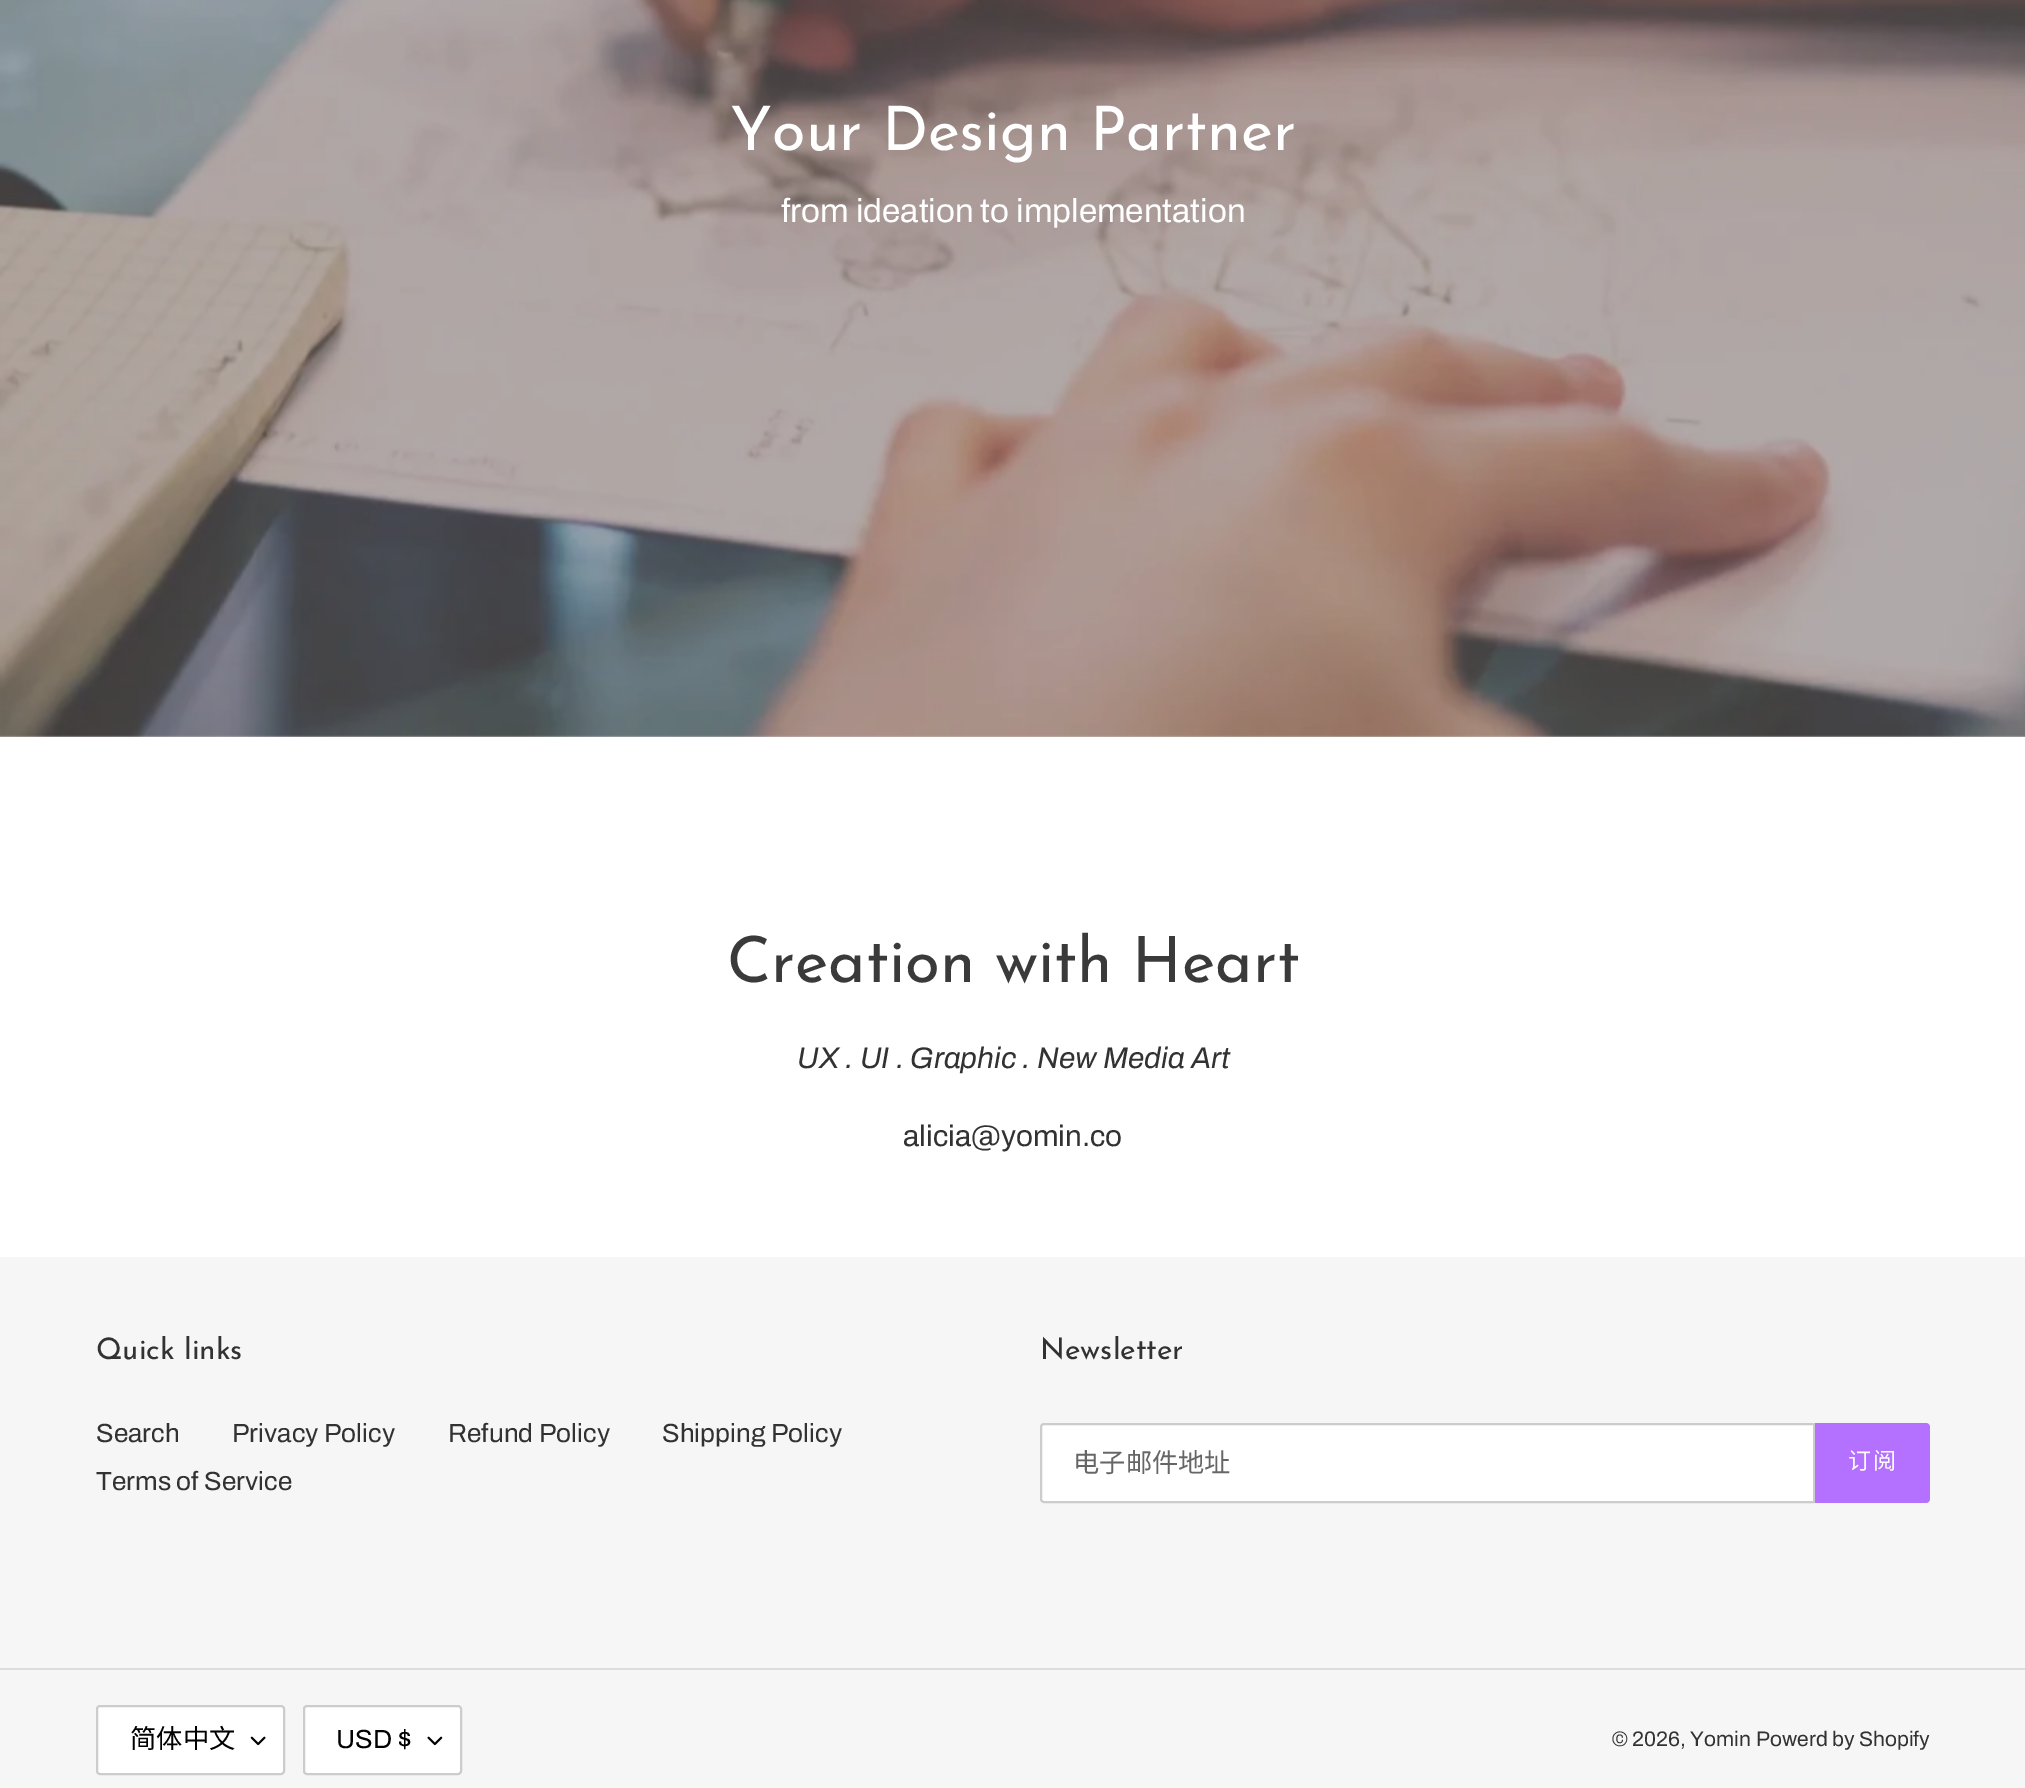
%!PS
<< /PageSize [2025 1788] >> setpagedevice
/m/moveto load def
/l/rlineto load def
/c/rcurveto load def
/z/closepath load def
/f/fill load def
/s/stroke load def
/q/gsave load def
/Q_/grestore load def
/w/setlinewidth load def
/C { dup -16 bitshift 255 div exch dup -8 bitshift 255 and 255 div exch 255 and 255 div setrgbcolor } def
/F { [ exch dup neg 0 0 3 -1 roll 0 0 ] selectfont } def
/T { moveto show } def
/R { rectfill } def
/Q { 5 dict begin { /r /h /w /y /x } { exch def } forall
  x r add y moveto x w add y 2 copy h add r arct x w add y h add x 1 index r arct
  x y h add x y r arct x y 2 copy exch w add exch r arct closepath end } def
/I { 5 dict begin { /h /w /y /x /name } { exch def } forall
  gsave x y translate w h scale
  w h 8 [w 0 0 h 0 0] name (r) file false 3 colorimage grestore end } def
0 1788 translate 1 -1 scale
4 setmiterlimit
16#FFFFFF C
0 0 2025 1788 R
16#CBC6C6 C
0 735 2025 2 R
(1.rgb) 0 0 2025 737 I
/JosefinSans-Regular 61.25 F
16#FFFFFF C
(Your Design Partner) 730 150 T
/Archivo-Regular 33.25 F
(from ideation to implementation) 781 222 T
/JosefinSans-Regular 63.75 F
16#3A3A3A C
(Creation with Heart) 727 982 T
/Archivo-Italic 29.75 F
16#333232 C
(UX . UI . Graphic . New Media Art) 797 1068 T
/Archivo-Regular 29.75 F
(alicia@yomin.co) 903 1146 T
16#F6F6F6 C
0 1257 2025 531 R
/JosefinSans-Regular 29.75 F
16#333232 C
(Quick links) 96 1359 T
/Archivo-Regular 26.25 F
(Search) 96 1442 T
(Privacy Policy) 232 1442 T
(Refund Policy) 448 1442 T
(Shipping Policy) 662 1442 T
(Terms of Service) 96 1490 T
/JosefinSans-Regular 29.75 F
(Newsletter) 1040 1359 T
16#FFFFFF C
1044 1424 m 770 0 l 0 78 l -770 0 l -1.5 0 -3 -1.5 -3 -3 c 0 -72 l 0 -1.5 1.5 -3 3 -3 c z q f Q_
16#CCCCCC C
2 w
s
/NotoSansCJKSC-Regular 26.25 F
16#666666 C
(电子邮件地址) 1073 1472 T
16#B470FF C
1815 1423 m 111 0 l 2 0 4 2 4 4 c 0 72 l 0 2 -2 4 -4 4 c -111 0 l z f
/NotoSansCJKSC-Regular 23 F
16#FFFFFF C
1848 1469 m 2 0 (订阅) ashow
16#DDDDDD C
0 1668 2025 2 R
16#FFFFFF C
96 1705 189 70 4 Q f
(2.rgb) 250 1736 16 10 I
16#CCCCCC C
97 1706 187 68 3 Q s
/NotoSansCJKSC-Regular 26.25 F
16#000000 C
(简体中文) 130 1748 T
16#FFFFFF C
303 1705 159 70 4 Q f
(3.rgb) 427 1736 16 10 I
16#CCCCCC C
304 1706 157 68 3 Q s
/Archivo-Regular 26.25 F
16#000000 C
(USD $) 336 1748 T
/Archivo-Regular 21 F
16#333232 C
(© 2026, Yomin) 1612 1746 T
(Powerd by Shopify) 1756 1746 T
showpage
